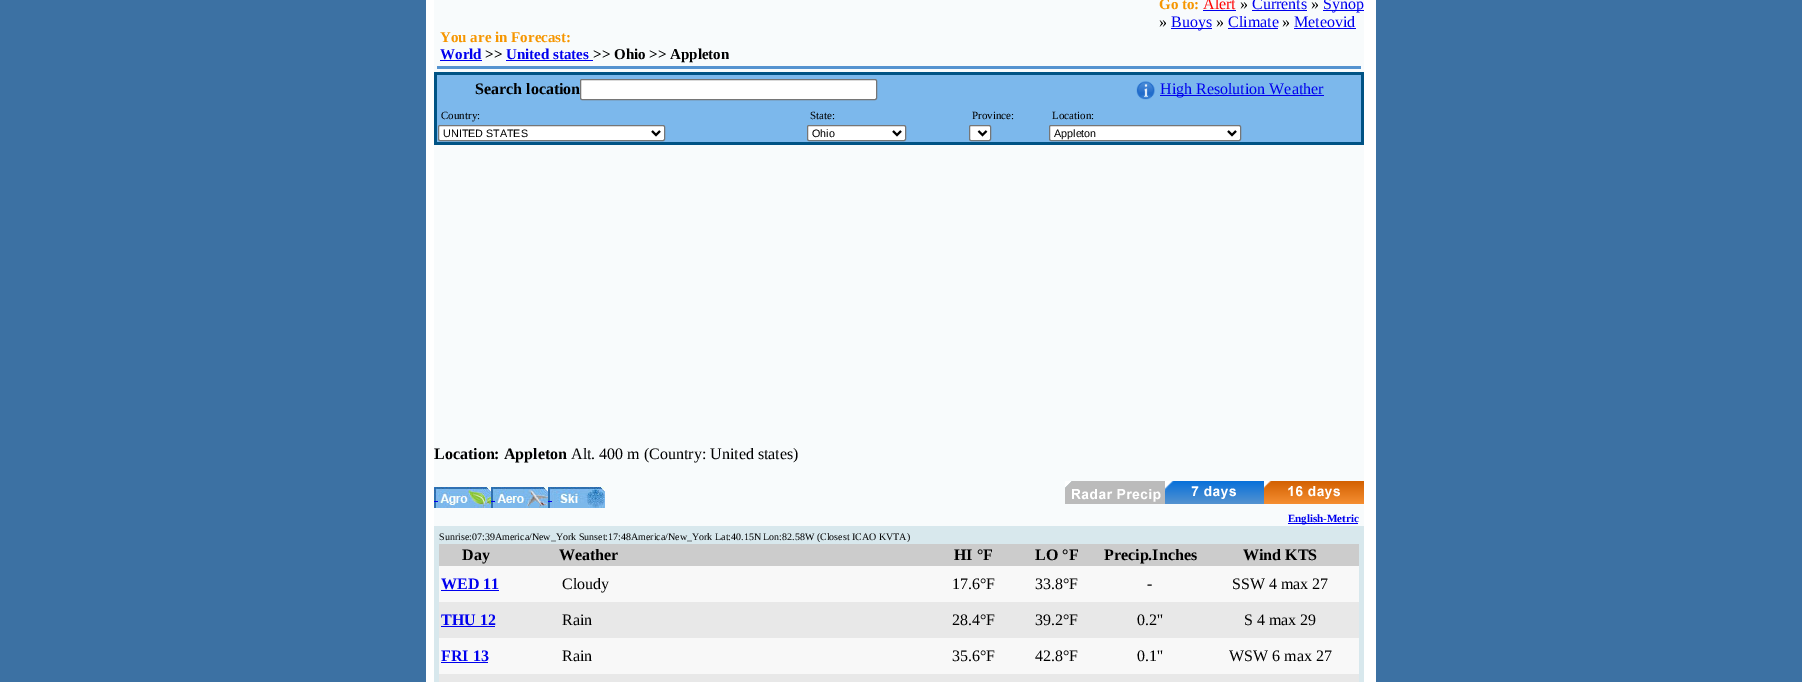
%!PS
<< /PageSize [1802 682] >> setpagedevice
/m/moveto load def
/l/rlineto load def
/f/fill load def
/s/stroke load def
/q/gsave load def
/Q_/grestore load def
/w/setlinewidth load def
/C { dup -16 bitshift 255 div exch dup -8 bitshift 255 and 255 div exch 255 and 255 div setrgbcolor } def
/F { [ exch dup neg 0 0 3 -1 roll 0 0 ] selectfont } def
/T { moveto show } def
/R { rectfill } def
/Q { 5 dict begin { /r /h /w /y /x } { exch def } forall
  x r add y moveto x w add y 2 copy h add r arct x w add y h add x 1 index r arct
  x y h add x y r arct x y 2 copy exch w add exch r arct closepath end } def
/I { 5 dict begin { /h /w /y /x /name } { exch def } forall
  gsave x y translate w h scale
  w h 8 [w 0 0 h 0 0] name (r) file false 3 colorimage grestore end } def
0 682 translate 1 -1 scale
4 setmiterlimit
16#3C71A3 C
0 0 1802 682 R
16#FFFFFF C
426 0 950 682 R
16#F8FBFC C
434 0 930 526 R
/LiberationSerif-Bold 15 F
16#F69600 C
(Go to:) 1159 9 T
/LiberationSerif-Regular 16 F
16#FF0000 C
(Alert) 1203 9 T
16#0000EE C
1203 10 33 1 R
16#000000 C
(») 1240 9 T
16#0000EE C
(Currents) 1252 9 T
1252 10 55 1 R
16#000000 C
(») 1311 9 T
16#0000EE C
1323 10 41 1 R
(Synop) 1323 9 T
16#000000 C
(») 1159 27 T
16#0000EE C
1171 28 41 1 R
(Buoys) 1171 27 T
16#000000 C
(») 1216 27 T
16#0000EE C
(Climate) 1228 27 T
1228 28 50 1 R
16#000000 C
(») 1282 27 T
16#0000EE C
(Meteovid) 1294 27 T
1294 28 62 1 R
16#5593D0 C
437 66 924 3 R
/LiberationSerif-Bold 15 F
16#F69600 C
(You are in Forecast:) 440 42 T
16#0000EE C
(World) 440 59 T
440 60 42 1 R
16#000000 C
(>>) 485 59 T
16#0000EE C
(United states) 506 59 T
506 60 87 1 R
16#000000 C
(>> Ohio >> Appleton) 593 59 T
16#7CB8EC C
437 75 924 67 R
16#005385 C
434 72 930 3 R
1361 72 3 73 R
434 142 930 3 R
434 72 3 73 R
/LiberationSerif-Bold 16 F
16#000000 C
(Search location) 475 94 T
16#FFFFFF C
580.5 79.5 296 20 1.5 Q q f Q_
16#767676 C
s
(1.rgb) 1136 81 19 19 I
16#0000EE C
1160 95 164 1 R
/LiberationSerif-Regular 16 F
(High Resolution Weather) 1160 94 T
/LiberationSerif-Regular 11 F
16#000000 C
(Country:) 441 119 T
16#FFFFFF C
438.5 125.5 226 15 1.5 Q q f Q_
16#767676 C
s
16#000000 C
2 w
652 131 m 4 4 l 4 -4 l s
/LiberationSans-Regular 10.75 F
(UNITED STATES) 443 137 T
/LiberationSerif-Regular 11 F
(State:) 810 119 T
16#FFFFFF C
807.5 125.5 98 15 1.5 Q q f Q_
16#767676 C
1 w
s
16#000000 C
2 w
893 131 m 4 4 l 4 -4 l s
/LiberationSans-Regular 10.75 F
(Ohio) 812 137 T
/LiberationSerif-Regular 11 F
(Province:) 972 119 T
16#FFFFFF C
969.5 125.5 21 15 1.5 Q q f Q_
16#767676 C
1 w
s
16#000000 C
2 w
978.5 131 m 4 4 l 4 -4 l s
(Location:) 1052 119 T
16#FFFFFF C
1049.5 125.5 191 15 1.5 Q q f Q_
16#767676 C
1 w
s
16#000000 C
2 w
1228 131 m 4 4 l 4 -4 l s
/LiberationSans-Regular 10.75 F
(Appleton) 1054 137 T
/LiberationSerif-Bold 16 F
(Location: Appleton) 434 459 T
/LiberationSerif-Regular 16 F
(Alt. 400 m \(Country: United states\)) 571 459 T
(2.rgb) 434 487 57 21 I
16#0000EE C
434 501 4 1 R
(3.rgb) 491 487 57 21 I
491 501 4 1 R
(4.rgb) 548 487 57 21 I
548 501 4 1 R
(5.rgb) 1065 481 100 23 I
(6.rgb) 1165 481 99 23 I
(7.rgb) 1264 481 100 23 I
1288 523 70 1 R
/LiberationSerif-Bold 11 F
(English-Metric) 1288 522 T
16#D8E8ED C
434 526 930 156 R
/LiberationSerif-Regular 10 F
16#000000 C
(Sunrise:07:39America/New_York Sunset:17:48America/New_York Lat:40.15N Lon:82.58W \(Closest ICAO KVTA\)) 439 540 T
16#CCCCCC C
439 544 920 22 R
/LiberationSerif-Bold 16 F
16#000000 C
(Day) 462 560 T
(Weather) 559 560 T
(HI °F) 954 560 T
(LO °F) 1035 560 T
(Precip.Inches) 1104 560 T
(Wind KTS) 1243 560 T
16#F8F8F8 C
439 566 920 36 R
16#0000EE C
(WED 11) 441 589 T
441 590 58 1 R
/LiberationSerif-Regular 16 F
16#000000 C
(Cloudy) 562 589 T
(17.6°F) 952 589 T
(33.8°F) 1035 589 T
(-) 1147 589 T
(SSW 4 max 27) 1232 589 T
16#E8E8E8 C
439 602 920 36 R
/LiberationSerif-Bold 16 F
16#0000EE C
(THU 12) 441 625 T
441 626 54 1 R
/LiberationSerif-Regular 16 F
16#000000 C
(Rain) 562 625 T
(28.4°F) 952 625 T
(39.2°F) 1035 625 T
(0.2'') 1137 625 T
(S 4 max 29) 1244 625 T
16#F8F8F8 C
439 638 920 36 R
/LiberationSerif-Bold 16 F
16#0000EE C
(FRI 13) 441 661 T
441 662 47 1 R
/LiberationSerif-Regular 16 F
16#000000 C
(Rain) 562 661 T
(35.6°F) 952 661 T
(42.8°F) 1035 661 T
(0.1'') 1137 661 T
(WSW 6 max 27) 1229 661 T
16#E8E8E8 C
439 674 920 8 R
showpage
